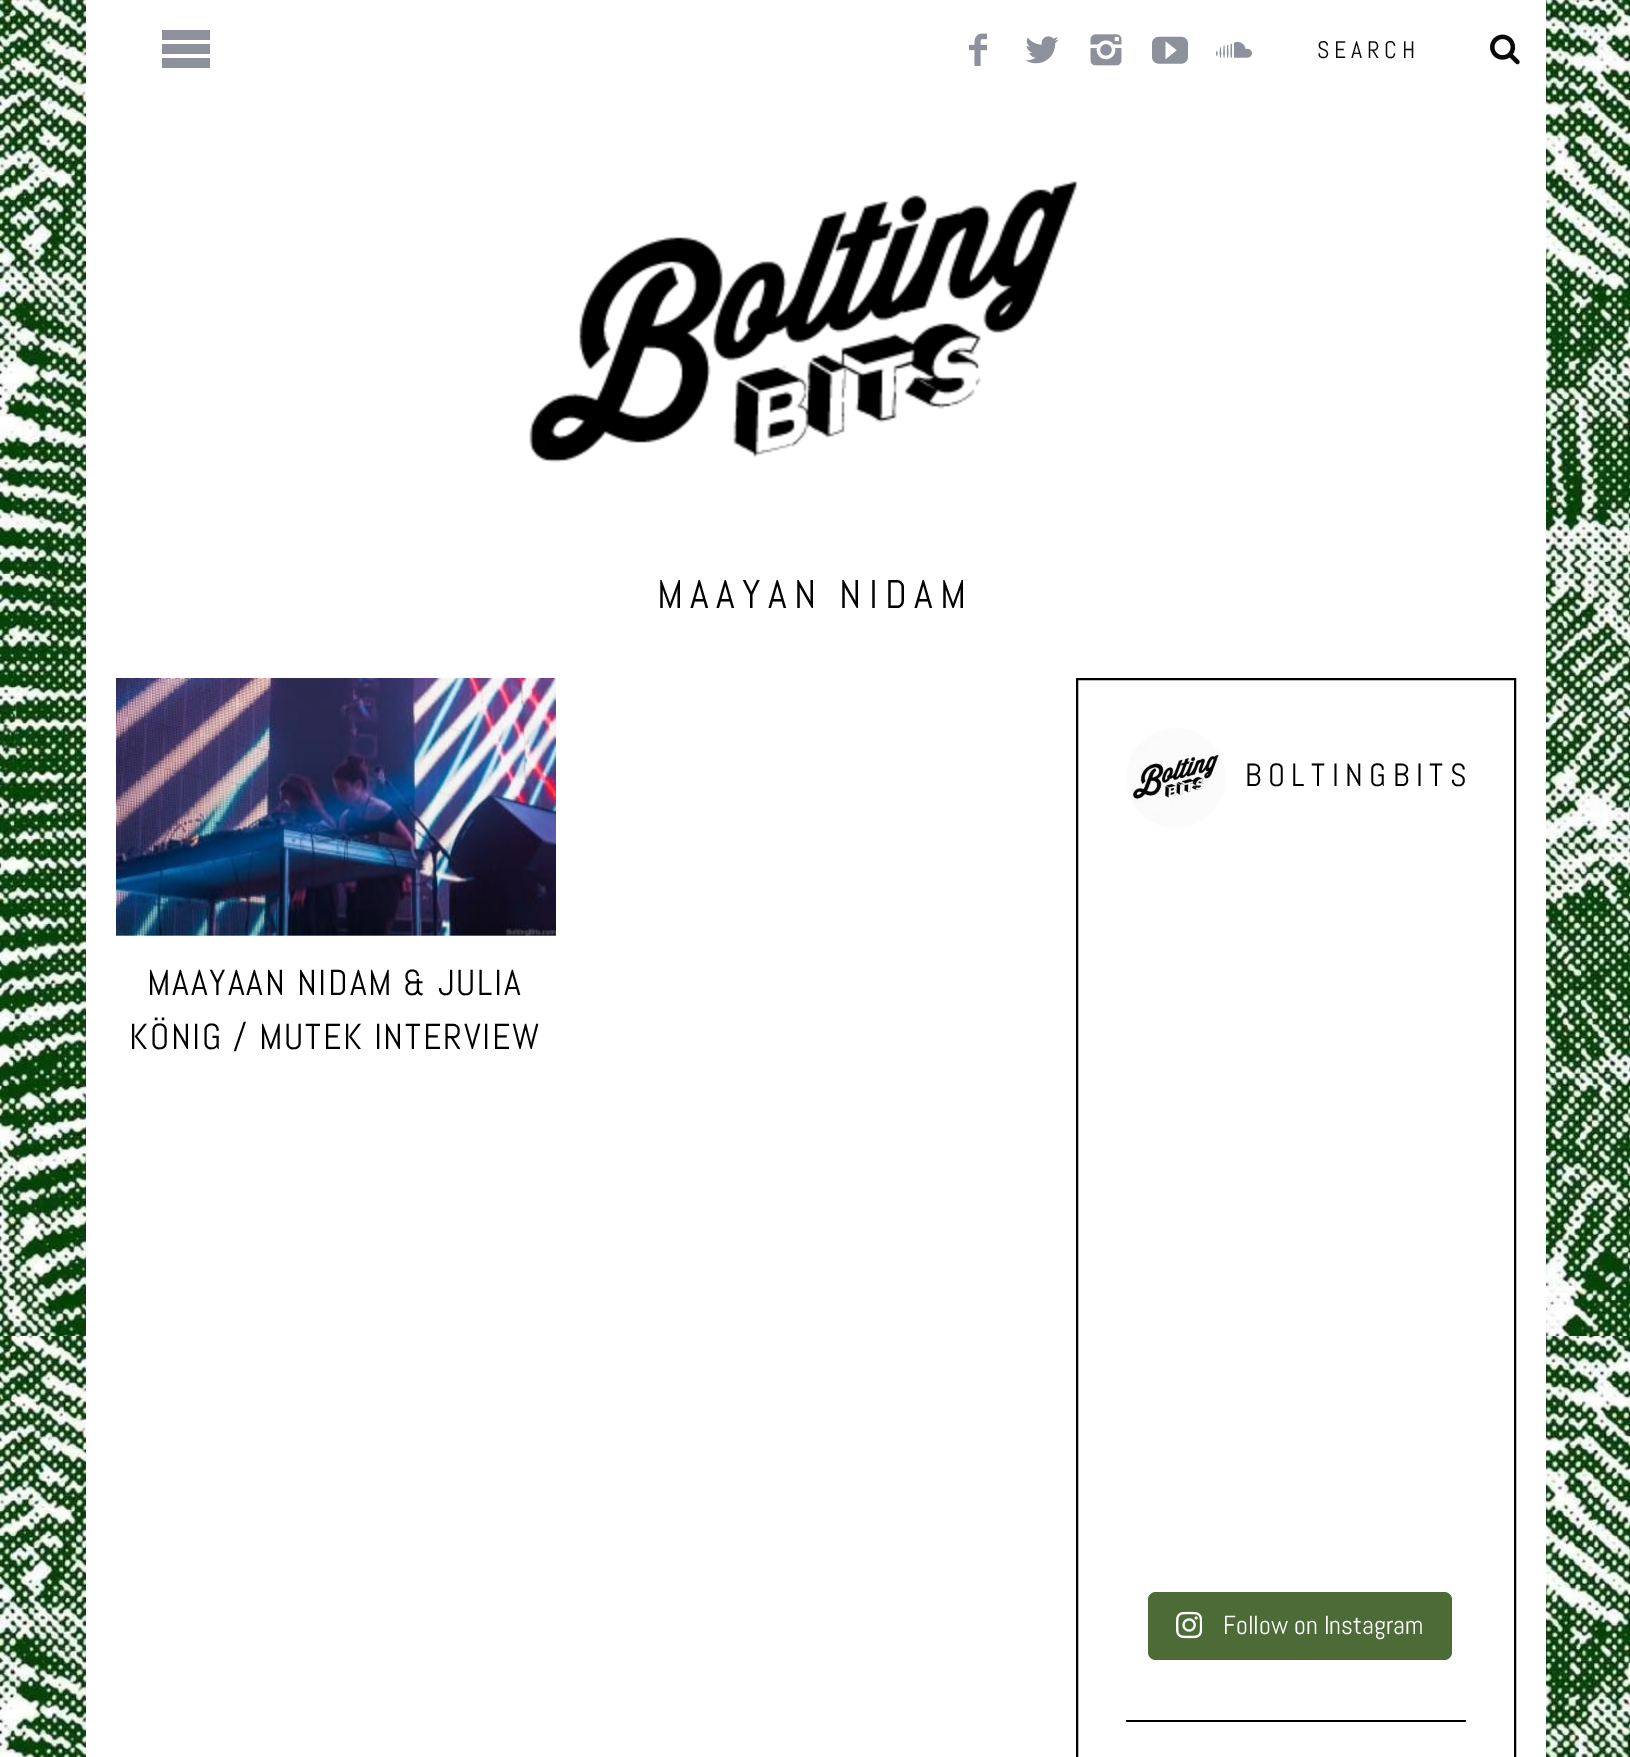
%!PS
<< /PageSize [1630 1757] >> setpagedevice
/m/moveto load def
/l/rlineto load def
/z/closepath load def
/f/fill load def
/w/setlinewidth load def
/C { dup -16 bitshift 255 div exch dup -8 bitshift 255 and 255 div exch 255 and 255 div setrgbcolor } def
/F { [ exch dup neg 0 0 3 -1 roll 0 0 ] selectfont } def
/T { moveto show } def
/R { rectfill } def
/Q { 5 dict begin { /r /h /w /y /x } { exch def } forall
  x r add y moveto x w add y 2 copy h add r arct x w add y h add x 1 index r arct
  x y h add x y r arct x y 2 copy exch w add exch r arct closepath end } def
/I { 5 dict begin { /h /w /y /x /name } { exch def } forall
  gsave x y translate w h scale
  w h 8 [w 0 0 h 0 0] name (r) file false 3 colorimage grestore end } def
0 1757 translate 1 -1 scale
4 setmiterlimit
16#FFFFFF C
0 0 1630 1757 R
(1.rgb) 0 0 1630 1757 I
86 0 1460 1757 R
16#8C919B C
162 30 m 48 0 l 0 10 l -48 0 l z 162 44 m 48 0 l 0 10 l -48 0 l z 162 58 m 48 0 l 0 10 l -48 0 l z f
(2.rgb) 969 33 18 33 I
(3.rgb) 1025 36 34 28 I
(4.rgb) 1090 34 32 32 I
(5.rgb) 1152 36 36 28 I
(6.rgb) 1216 41 36 17 I
/Abel-Regular 24 F
16#0A0A0A C
1317 58 m 4.75 0 (SEARCH) ashow
(7.rgb) 1490 34 30 31 I
(8.rgb) 529 181 549 282 I
/Abel-Regular 40 F
16#000000 C
657 608 m 7.25 0 (MAAYAN NIDAM) ashow
(9.rgb) 116 678 440 258 I
/Abel-Regular 36 F
147 995 m 1.8 0 (MAAYAAN NIDAM & JULIA) ashow
129 1049 m 1.8 0 (KÖNIG / MUTEK INTERVIEW) ashow
2 w
1077 679 438 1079 rectstroke
1126 1720 340 2 R
(10.rgb) 1126 728 100 100 I
/Abel-Regular 32 F
1245 786 m 6.4 0 (BOLTINGBITS) ashow
16#4C6B37 C
1148 1592 304 68 8 Q f
(11.rgb) 1176 1611 26 28 I
/Abel-Regular 26 F
16#FFFFFF C
(Follow on Instagram) 1223 1634 T
showpage
